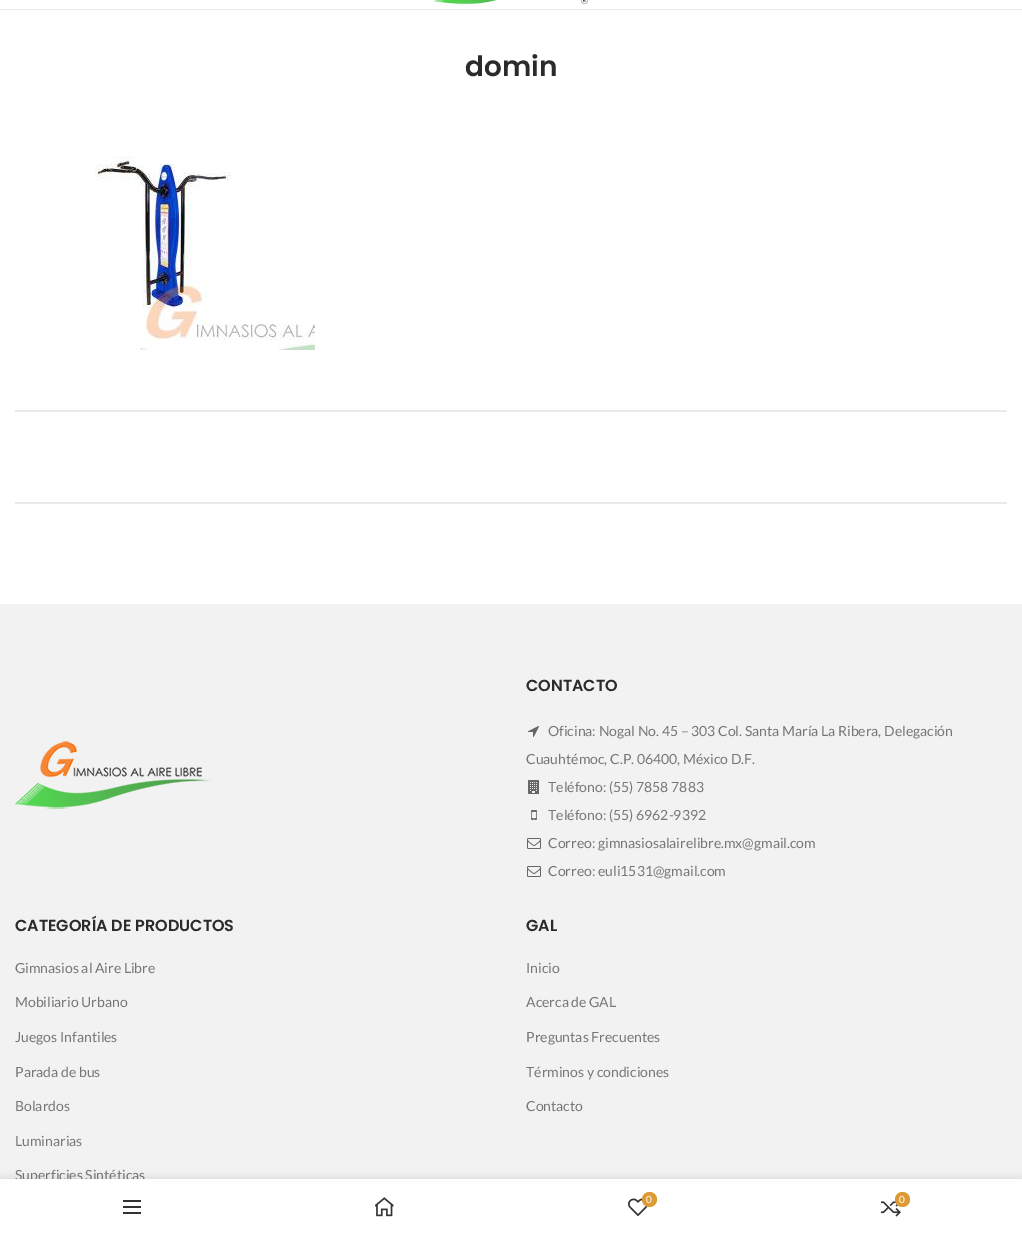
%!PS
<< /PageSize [1022 1234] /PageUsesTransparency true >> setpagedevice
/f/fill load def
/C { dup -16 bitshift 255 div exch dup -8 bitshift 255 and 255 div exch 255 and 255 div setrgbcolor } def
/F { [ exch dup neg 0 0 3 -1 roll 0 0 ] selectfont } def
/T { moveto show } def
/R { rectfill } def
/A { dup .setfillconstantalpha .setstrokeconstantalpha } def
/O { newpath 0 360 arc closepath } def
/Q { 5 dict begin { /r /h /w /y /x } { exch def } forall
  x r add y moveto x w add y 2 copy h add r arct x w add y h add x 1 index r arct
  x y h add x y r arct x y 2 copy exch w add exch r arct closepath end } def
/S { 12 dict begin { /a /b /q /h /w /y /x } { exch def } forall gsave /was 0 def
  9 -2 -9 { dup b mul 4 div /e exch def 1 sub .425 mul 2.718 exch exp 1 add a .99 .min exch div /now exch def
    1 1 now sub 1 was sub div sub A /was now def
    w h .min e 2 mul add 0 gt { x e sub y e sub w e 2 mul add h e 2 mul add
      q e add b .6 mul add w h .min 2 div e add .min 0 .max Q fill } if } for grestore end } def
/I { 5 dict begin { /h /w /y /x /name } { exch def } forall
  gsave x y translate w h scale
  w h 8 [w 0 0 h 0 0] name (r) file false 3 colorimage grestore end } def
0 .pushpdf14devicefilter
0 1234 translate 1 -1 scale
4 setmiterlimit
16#FFFFFF C
0 0 1022 1234 R
16#E8E8E8 C
0 9 1022 1 R
(1.rgb) 434 0 154 4 I
/Poppins-SemiBold 28 F
16#2D2A2A C
(domin) 465 76 T
(2.rgb) 95 156 220 194 I
16#EAEAEA C
15 410 992 2 R
15 502 992 2 R
16#F2F2F2 C
0 604 1022 575 R
(3.rgb) 15 741 197 68 I
/Poppins-SemiBold 16 F
16#2D2A2A C
(CONTACTO) 526 691 T
(4.rgb) 528 726 11 11 I
/Lato-Regular 14 F
16#777777 C
(Oficina: Nogal No. 45 – 303 Col. Santa María La Ribera, Delegación) 548 736 T
(Cuauhtémoc, C.P. 06400, México D.F.) 526 764 T
(5.rgb) 528 780 11 14 I
(Teléfono: \(55\) 7858 7883) 548 792 T
(6.rgb) 531 810 6 10 I
(Teléfono: \(55\) 6962-9392) 548 820 T
(7.rgb) 527 838 14 11 I
(Correo: gimnasiosalairelibre.mx@gmail.com) 548 848 T
(7.rgb) 527 866 14 11 I
(Correo: euli1531@gmail.com) 548 876 T
/Poppins-SemiBold 16 F
16#2D2A2A C
(CATEGORÍA DE PRODUCTOS) 15 931 T
/Lato-Regular 14 F
16#777777 C
(Gimnasios al Aire Libre) 15 973 T
(Mobiliario Urbano) 15 1007 T
(Juegos Infantiles) 15 1042 T
(Parada de bus) 15 1077 T
(Bolardos) 15 1111 T
(Luminarias) 15 1146 T
(Superficies Sintéticas) 15 1180 T
/Poppins-SemiBold 16 F
16#2D2A2A C
(GAL) 526 931 T
/Lato-Regular 14 F
16#777777 C
(Inicio) 526 973 T
(Acerca de GAL) 526 1007 T
(Preguntas Frecuentes) 526 1042 T
(Términos y condiciones) 526 1077 T
(Contacto) 526 1111 T
16#000000 C
0 1179 1022 55 0 4.5 .12 S
16#FFFFFF C
0 1179 1022 55 R
16#333333 C
123 1206 18 2 R
123 1200 18 2 R
123 1212 18 2 R
(8.rgb) 375 1197 19 20 I
(9.rgb) 628 1198 20 18 I
16#DD9933 C
649.5 1199.5 7.5 O f
/Lato-Regular 10 F
16#FFFFFF C
(0) 646 1203 T
(10.rgb) 881 1198 20 19 I
16#DD9933 C
902.5 1199.5 7.5 O f
16#FFFFFF C
(0) 899 1203 T
.poppdf14devicefilter showpage
